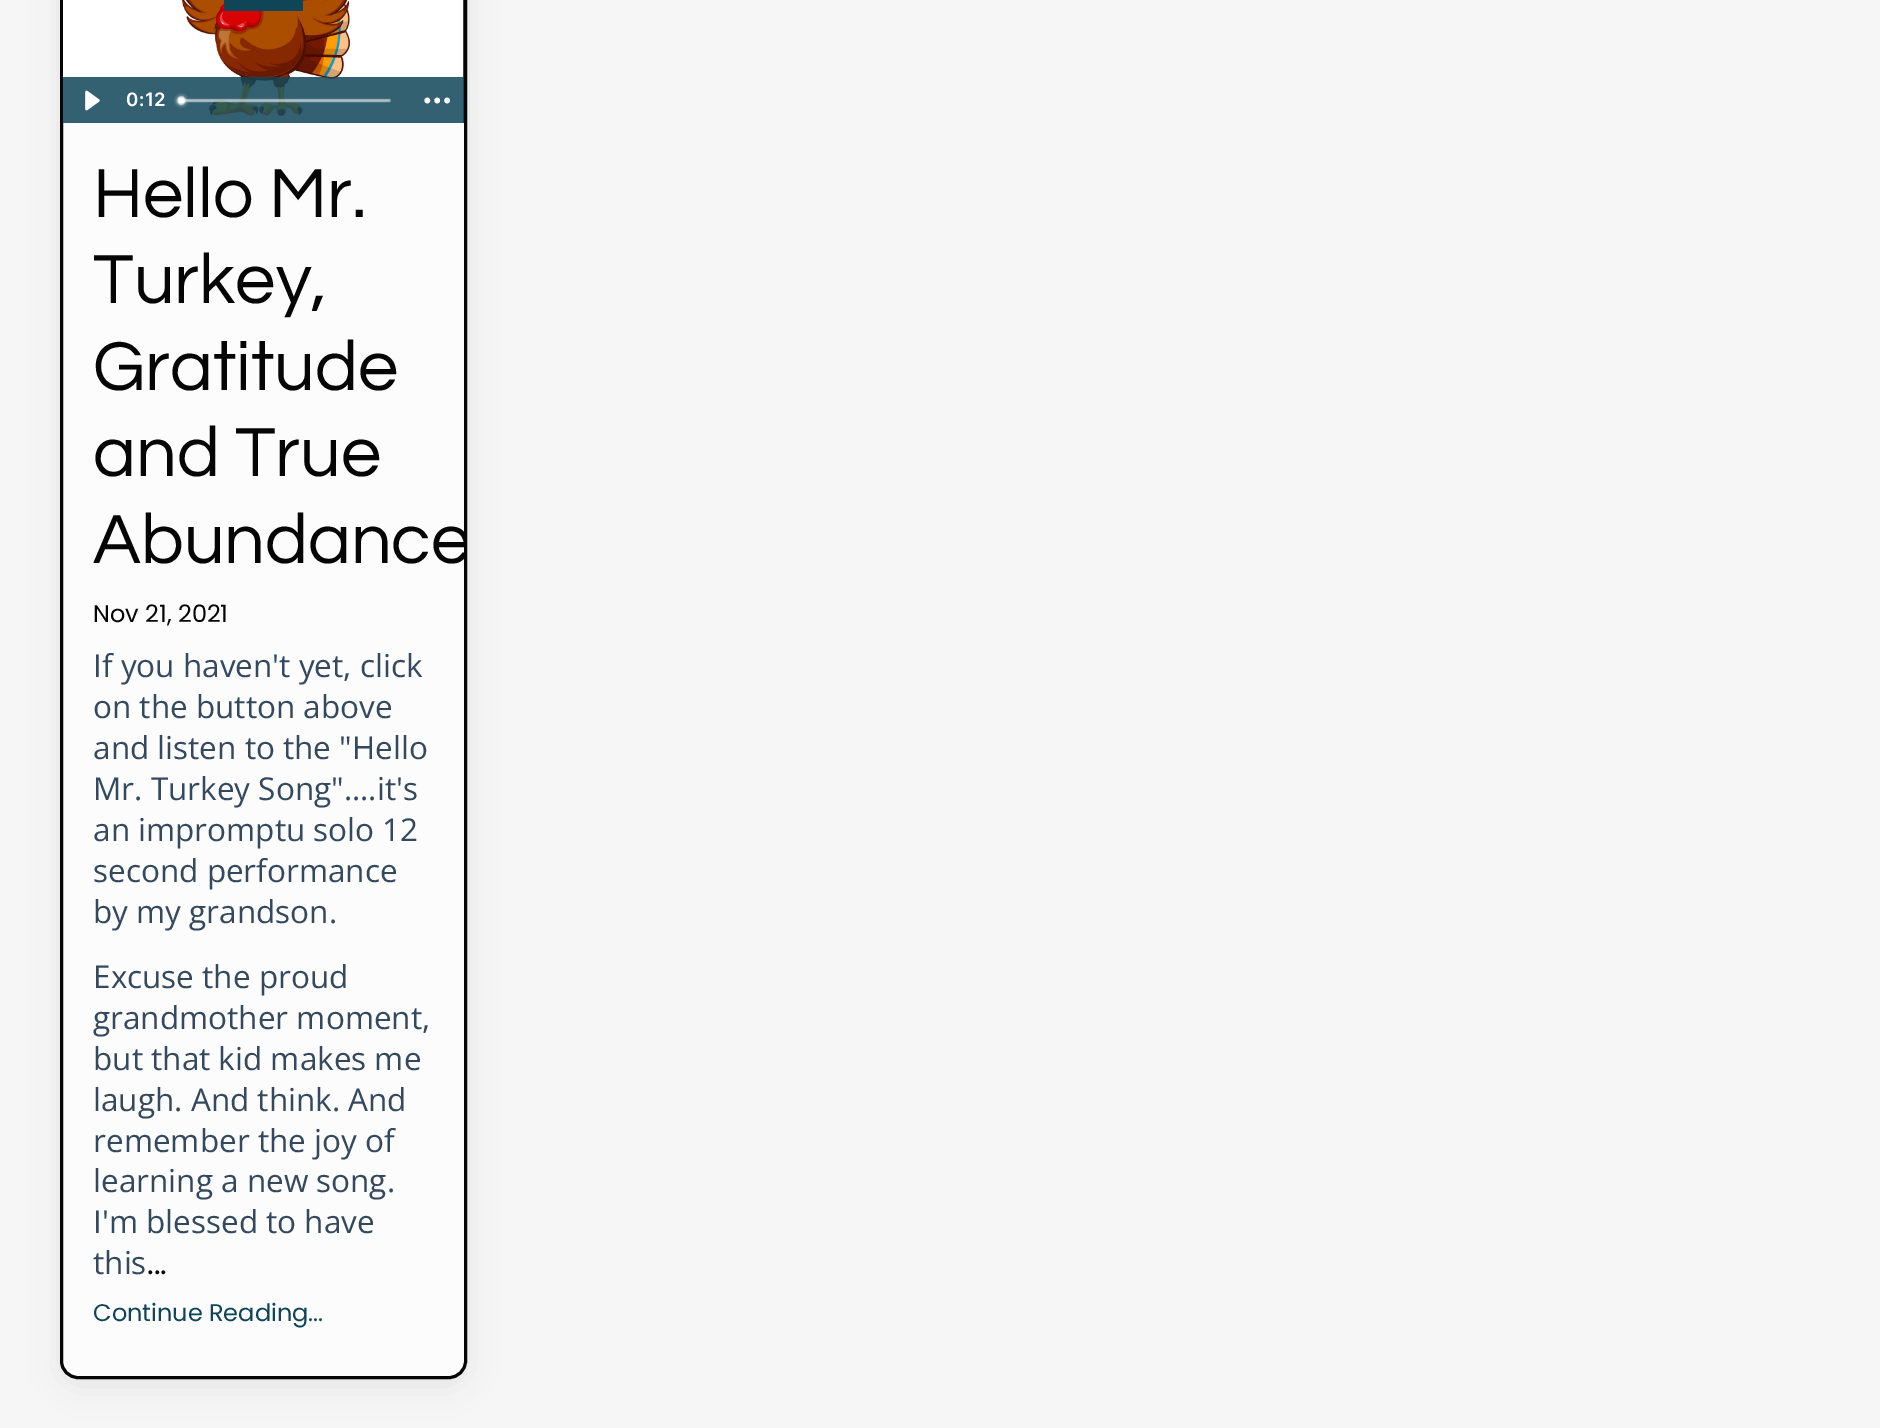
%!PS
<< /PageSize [1880 1428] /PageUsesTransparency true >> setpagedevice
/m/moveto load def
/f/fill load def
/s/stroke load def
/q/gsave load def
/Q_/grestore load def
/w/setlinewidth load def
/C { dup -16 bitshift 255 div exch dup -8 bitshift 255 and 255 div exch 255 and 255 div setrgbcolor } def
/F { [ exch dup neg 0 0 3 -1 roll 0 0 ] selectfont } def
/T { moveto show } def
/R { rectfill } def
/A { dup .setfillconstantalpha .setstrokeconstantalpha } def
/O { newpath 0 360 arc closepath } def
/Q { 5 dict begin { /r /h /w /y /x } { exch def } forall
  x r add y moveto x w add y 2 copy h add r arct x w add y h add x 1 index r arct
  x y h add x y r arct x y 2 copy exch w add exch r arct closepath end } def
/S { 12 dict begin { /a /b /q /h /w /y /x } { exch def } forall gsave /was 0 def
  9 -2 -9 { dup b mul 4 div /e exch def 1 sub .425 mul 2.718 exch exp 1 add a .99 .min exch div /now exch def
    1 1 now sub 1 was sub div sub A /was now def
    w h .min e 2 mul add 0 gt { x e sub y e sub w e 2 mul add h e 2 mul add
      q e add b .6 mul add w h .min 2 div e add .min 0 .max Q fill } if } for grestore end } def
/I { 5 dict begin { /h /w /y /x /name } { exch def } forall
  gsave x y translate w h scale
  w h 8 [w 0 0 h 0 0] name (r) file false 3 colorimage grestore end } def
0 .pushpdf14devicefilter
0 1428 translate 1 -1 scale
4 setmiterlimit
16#F6F6F6 C
0 0 1880 1428 R
16#000000 C
60 -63 407 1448 18 15 .07 S
16#FCFCFC C
61.5 -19.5 404 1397 16.5 Q q f Q_
16#050505 C
3 w
s
16#000000 C
463 0 1 123 R
(1.rgb) 63 0 401 123 I
16#104558 C
224 0 79 11 R
0.85 A
63 77 401 46 R
1 A
(2.rgb) 85 90 15 21 I
/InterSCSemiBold-SemiBold 18.5 F
16#FFFFFF C
126 106 m .5 0 (0:12) ashow
(3.rgb) 173 93 218 15 I
427.3 100.5 2.8 O f
437.2 100.5 2.8 O f
447.1 100.5 2.8 O f
/Questrial-Regular 72 F
16#050505 C
(Hello Mr.) 93 217 T
(Turkey,) 93 303 T
(Gratitude) 93 390 T
(and True) 93 476 T
q
63 -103 401 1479 15 Q clip newpath
(Abundance) 93 563 T
Q_
/Poppins-Regular 24 F
(Nov 21, 2021) 93 622 T
/OpenSans-Regular 31.5 F
16#34495E C
(If you haven't yet, click) 93 677 T
(on the button above) 93 718 T
(and listen to the "Hello) 93 759 T
(Mr. Turkey Song"....it's) 93 800 T
(an impromptu solo 12) 93 841 T
(second performance) 93 882 T
(by my grandson.) 93 923 T
(Excuse the proud) 93 988 T
(grandmother moment,) 93 1029 T
(but that kid makes me) 93 1070 T
(laugh. And think. And) 93 1111 T
(remember the joy of) 93 1152 T
(learning a new song.) 93 1192 T
(I'm blessed to have) 93 1233 T
(this) 93 1274 T
/Poppins-Regular 31.5 F
16#050505 C
(...) 147 1274 T
/Poppins-Regular 24 F
16#104558 C
(Continue Reading...) 93 1321 T
.poppdf14devicefilter showpage
